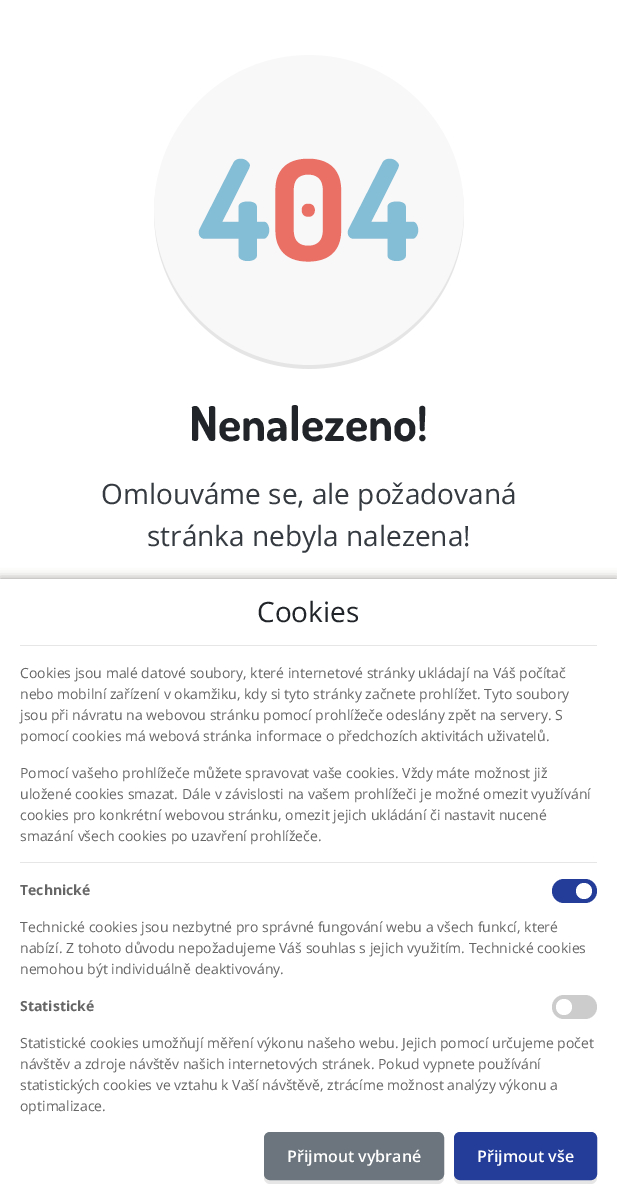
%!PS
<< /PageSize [617 1196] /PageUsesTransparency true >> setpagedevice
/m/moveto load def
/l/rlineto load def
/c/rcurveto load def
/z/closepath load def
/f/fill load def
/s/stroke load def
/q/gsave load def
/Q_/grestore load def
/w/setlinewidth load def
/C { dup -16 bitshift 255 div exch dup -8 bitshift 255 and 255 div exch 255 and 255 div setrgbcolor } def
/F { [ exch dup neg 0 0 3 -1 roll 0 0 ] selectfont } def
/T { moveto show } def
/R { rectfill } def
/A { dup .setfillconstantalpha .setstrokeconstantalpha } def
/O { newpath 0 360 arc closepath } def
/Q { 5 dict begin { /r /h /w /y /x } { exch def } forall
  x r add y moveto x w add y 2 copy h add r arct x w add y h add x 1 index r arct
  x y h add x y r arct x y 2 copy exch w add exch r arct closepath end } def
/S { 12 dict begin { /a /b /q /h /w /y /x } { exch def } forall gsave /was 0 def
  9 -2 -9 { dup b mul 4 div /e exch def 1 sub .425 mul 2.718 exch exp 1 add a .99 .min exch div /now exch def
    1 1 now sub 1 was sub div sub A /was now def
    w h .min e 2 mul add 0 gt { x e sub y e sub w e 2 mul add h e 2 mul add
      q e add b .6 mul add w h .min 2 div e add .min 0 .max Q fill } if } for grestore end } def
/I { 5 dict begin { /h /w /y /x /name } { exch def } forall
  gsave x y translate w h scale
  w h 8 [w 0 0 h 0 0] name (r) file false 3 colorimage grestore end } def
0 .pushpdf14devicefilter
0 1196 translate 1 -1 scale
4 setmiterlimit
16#FFFFFF C
0 0 617 1196 R
(1.rgb) 154 55 310 314 I
/Dosis-Bold 48 F
16#212529 C
(Nenalezeno!) 189 441 T
/OpenSans-Regular 28 F
16#343A40 C
(Omlouváme se, ale požadovaná) 101 504 T
(stránka nebyla nalezena!) 147 546 T
16#95928F C
0 579 617 617 0 5 1 S
16#FFFFFF C
0 579 617 617 R
16#212529 C
(Cookies) 257 622 T
16#E6E6E6 C
20 645 577 1 R
/OpenSans-Regular 14 F
16#666666 C
(Cookies jsou malé datové soubory, které internetové stránky ukládají na Váš počítač) 20 678 T
(nebo mobilní zařízení v okamžiku, kdy si tyto stránky začnete prohlížet. Tyto soubory) 20 699 T
(jsou při návratu na webovou stránku pomocí prohlížeče odeslány zpět na servery. S) 20 720 T
(pomocí cookies má webová stránka informace o předchozích aktivitách uživatelů.) 20 741 T
(Pomocí vašeho prohlížeče můžete spravovat vaše cookies. Vždy máte možnost již) 20 778 T
(uložené cookies smazat. Dále v závislosti na vašem prohlížeči je možné omezit využívání) 20 799 T
(cookies pro konkrétní webovou stránku, omezit jejich ukládání či nastavit nucené) 20 820 T
(smazání všech cookies po uzavření prohlížeče.) 20 841 T
16#E6E6E6 C
20 862 577 1 R
/OpenSans-Bold 14 F
16#666666 C
(Technické) 20 895 T
16#233D99 C
552 879 45 24 12 Q f
16#FFFFFF C
584 891 8 O f
/OpenSans-Regular 14 F
16#666666 C
(Technické cookies jsou nezbytné pro správné fungování webu a všech funkcí, které) 20 932 T
(nabízí. Z tohoto důvodu nepožadujeme Váš souhlas s jejich využitím. Technické cookies) 20 953 T
(nemohou být individuálně deaktivovány.) 20 974 T
/OpenSans-Bold 14 F
(Statistické) 20 1011 T
16#CCCCCC C
552 995 45 24 12 Q f
16#FFFFFF C
564 1007 8 O f
/OpenSans-Regular 14 F
16#666666 C
(Statistické cookies umožňují měření výkonu našeho webu. Jejich pomocí určujeme počet) 20 1048 T
(návštěv a zdroje návštěv našich internetových stránek. Pokud vypnete používání) 20 1069 T
(statistických cookies ve vztahu k Vaší návštěvě, ztrácíme možnost analýzy výkonu a) 20 1090 T
(optimalizace.) 20 1111 T
16#E6E6E6 C
264 1174 m 0 4 l 0 3 3 6 6 6 c 168 0 l 3 0 6 -3 6 -6 c 0 -4 l 0 3 -3 6 -6 6 c -168 0 l -3 0 -6 -3 -6 -6 c z f
16#6C757D C
265.5 1133.5 177 45 4.5 Q q f Q_
3 w
s
/OpenSans-SemiBold 16 F
16#FFFFFF C
(Přijmout vybrané) 287 1162 T
16#E6E6E6 C
454 1174 m 0 4 l 0 3 3 6 6 6 c 131 0 l 3 0 6 -3 6 -6 c 0 -4 l 0 3 -3 6 -6 6 c -131 0 l -3 0 -6 -3 -6 -6 c z f
16#233D99 C
455.5 1133.5 140 45 4.5 Q q f Q_
s
16#FFFFFF C
(Přijmout vše) 477 1162 T
.poppdf14devicefilter showpage
